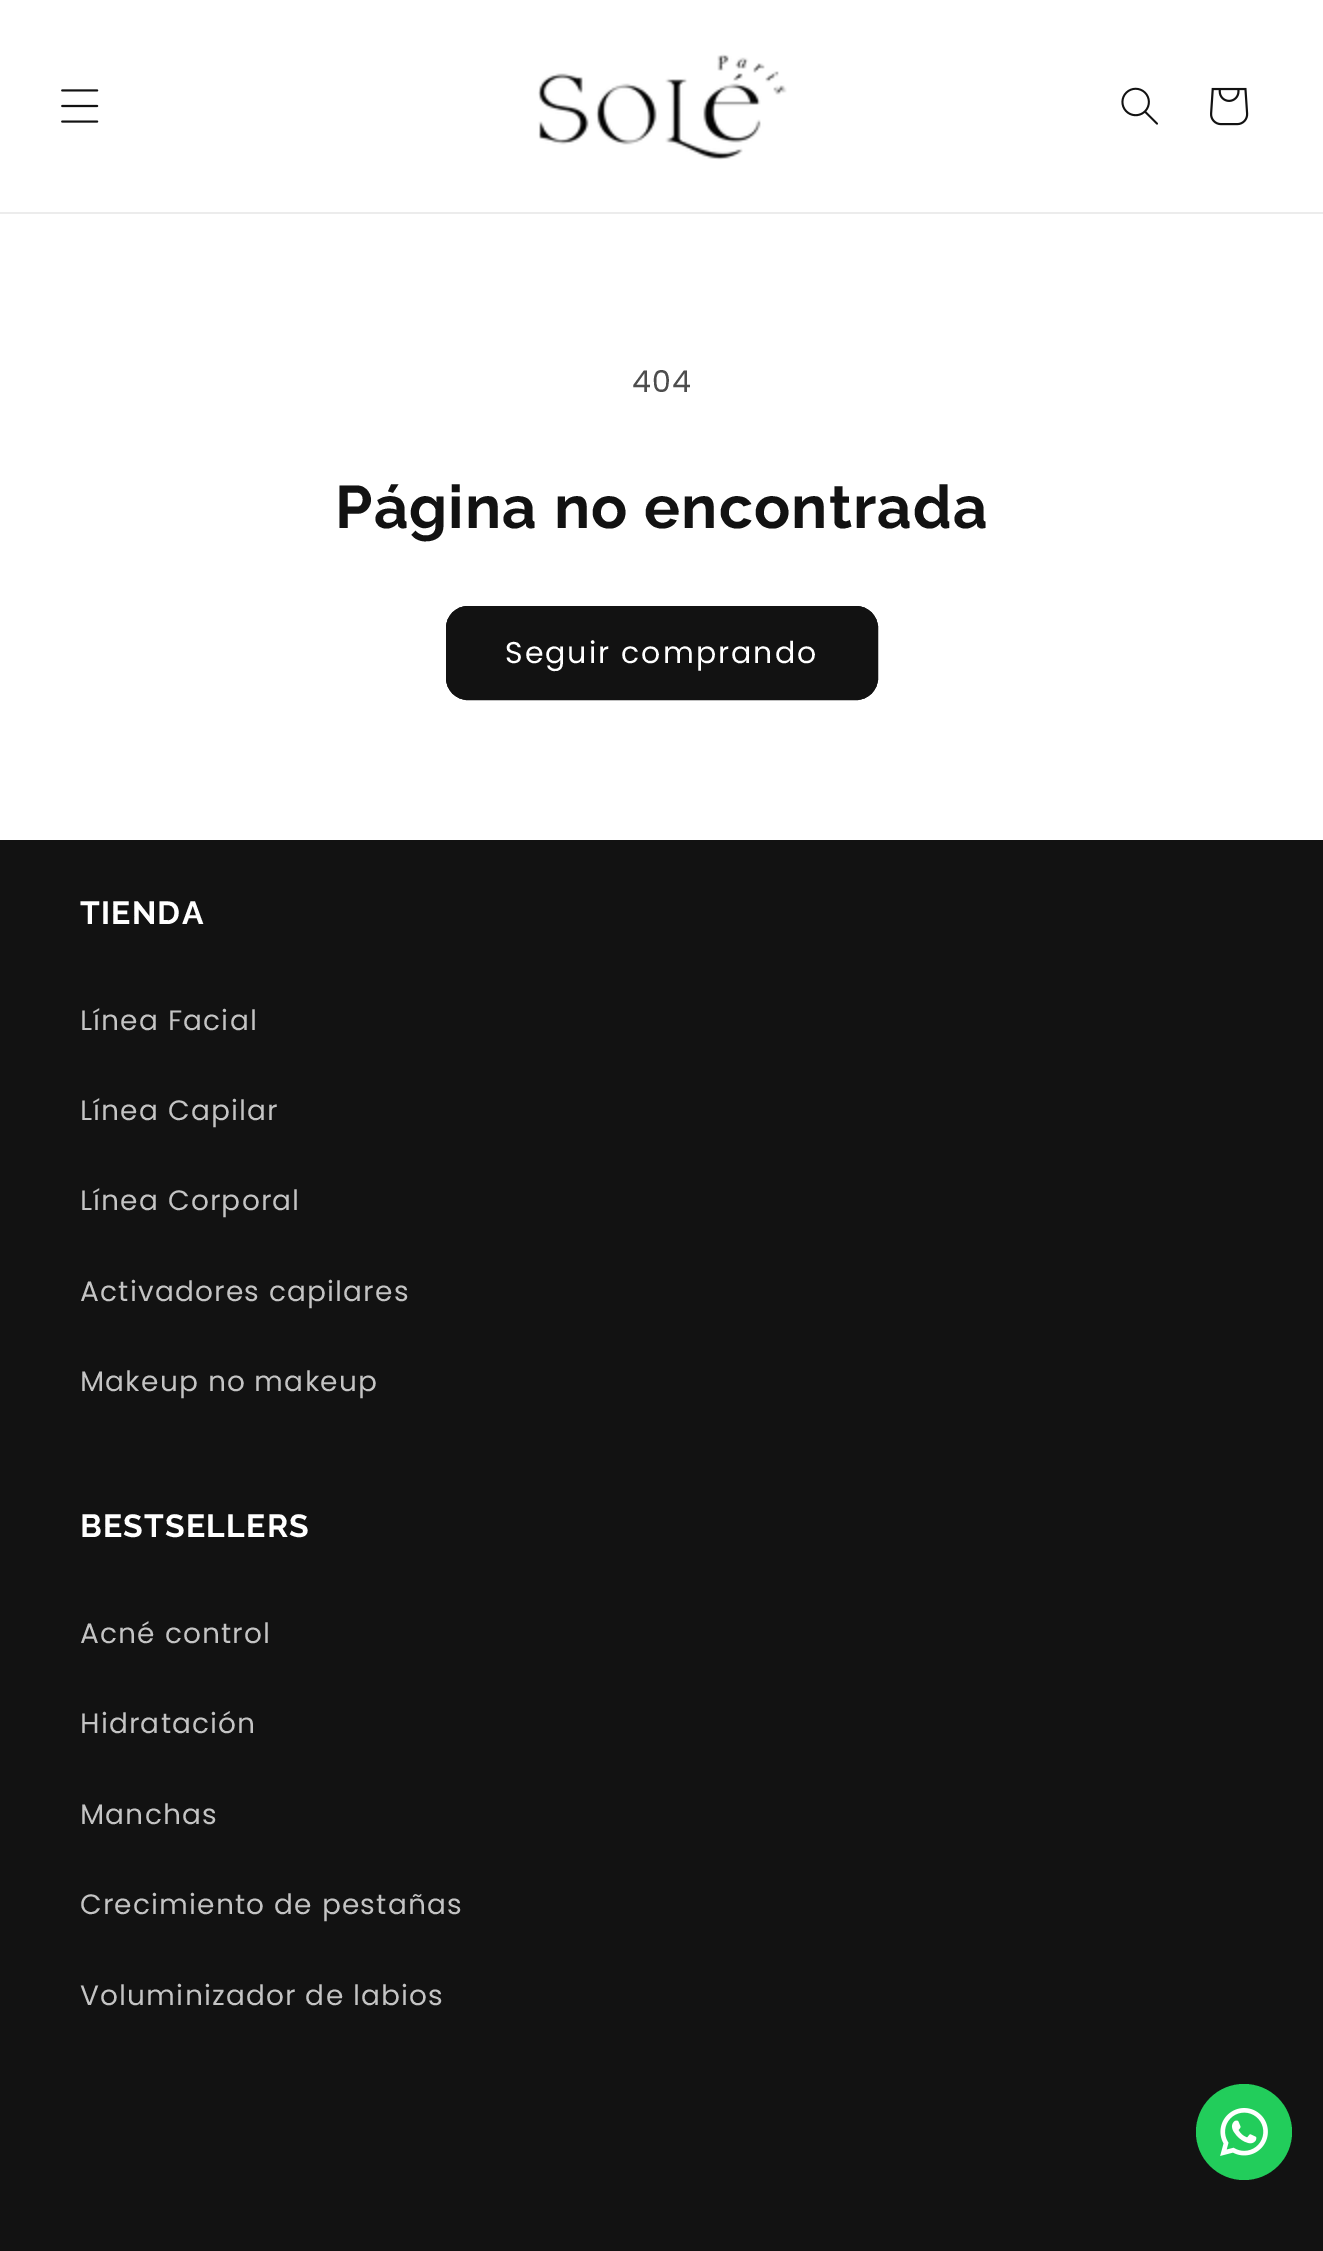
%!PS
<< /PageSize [1323 2251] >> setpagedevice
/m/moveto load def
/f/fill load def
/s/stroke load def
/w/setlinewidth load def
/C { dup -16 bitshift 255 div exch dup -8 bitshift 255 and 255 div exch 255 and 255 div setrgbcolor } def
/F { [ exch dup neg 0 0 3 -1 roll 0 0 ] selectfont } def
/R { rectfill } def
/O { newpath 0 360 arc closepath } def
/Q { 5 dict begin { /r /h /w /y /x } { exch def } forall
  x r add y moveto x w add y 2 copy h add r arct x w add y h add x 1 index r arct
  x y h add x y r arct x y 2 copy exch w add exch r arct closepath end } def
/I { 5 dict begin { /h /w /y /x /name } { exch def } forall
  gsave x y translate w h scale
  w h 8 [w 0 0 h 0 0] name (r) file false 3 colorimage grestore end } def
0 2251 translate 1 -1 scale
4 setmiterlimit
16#FFFFFF C
0 0 1323 2251 R
16#ECECEC C
0 212 1323 2 R
(1.rgb) 61 89 38 34 I
(2.rgb) 538 54 249 106 I
(3.rgb) 1121 87 37 38 I
(4.rgb) 1210 87 39 39 I
/Poppins-Regular 30 F
16#4D4D4D C
632 392 m 1.2 0 (404) ashow
/Raleway-Bold 60 F
16#121212 C
335 528 m 1.2 0 (Página no encontrada) ashow
446 606 432 94 22 Q f
2 w
447 607 430 92 21 Q s
/Poppins-Regular 30 F
16#FFFFFF C
505 663 m 2 0 (Seguir comprando) ashow
16#121212 C
0 840 1323 1411 R
/Raleway-Bold 32 F
16#FFFFFF C
80 924 m 1.2 0 (TIENDA) ashow
/Poppins-Regular 28 F
16#C4C4C4 C
80 1030 m 1.2 0 (Línea Facial) ashow
80 1120 m 1.2 0 (Línea Capilar) ashow
80 1210 m 1.2 0 (Línea Corporal) ashow
80 1301 m 1.2 0 (Activadores capilares) ashow
80 1391 m 1.2 0 (Makeup no makeup) ashow
/Raleway-Bold 32 F
16#FFFFFF C
80 1537 m 1.2 0 (BESTSELLERS) ashow
/Poppins-Regular 28 F
16#C4C4C4 C
80 1643 m 1.2 0 (Acné control) ashow
80 1733 m 1.2 0 (Hidratación) ashow
80 1824 m 1.2 0 (Manchas) ashow
80 1914 m 1.2 0 (Crecimiento de pestañas) ashow
80 2005 m 1.2 0 (Voluminizador de labios) ashow
16#22CD5B C
1244 2132 48 O f
(5.rgb) 1220 2108 48 48 I
showpage
